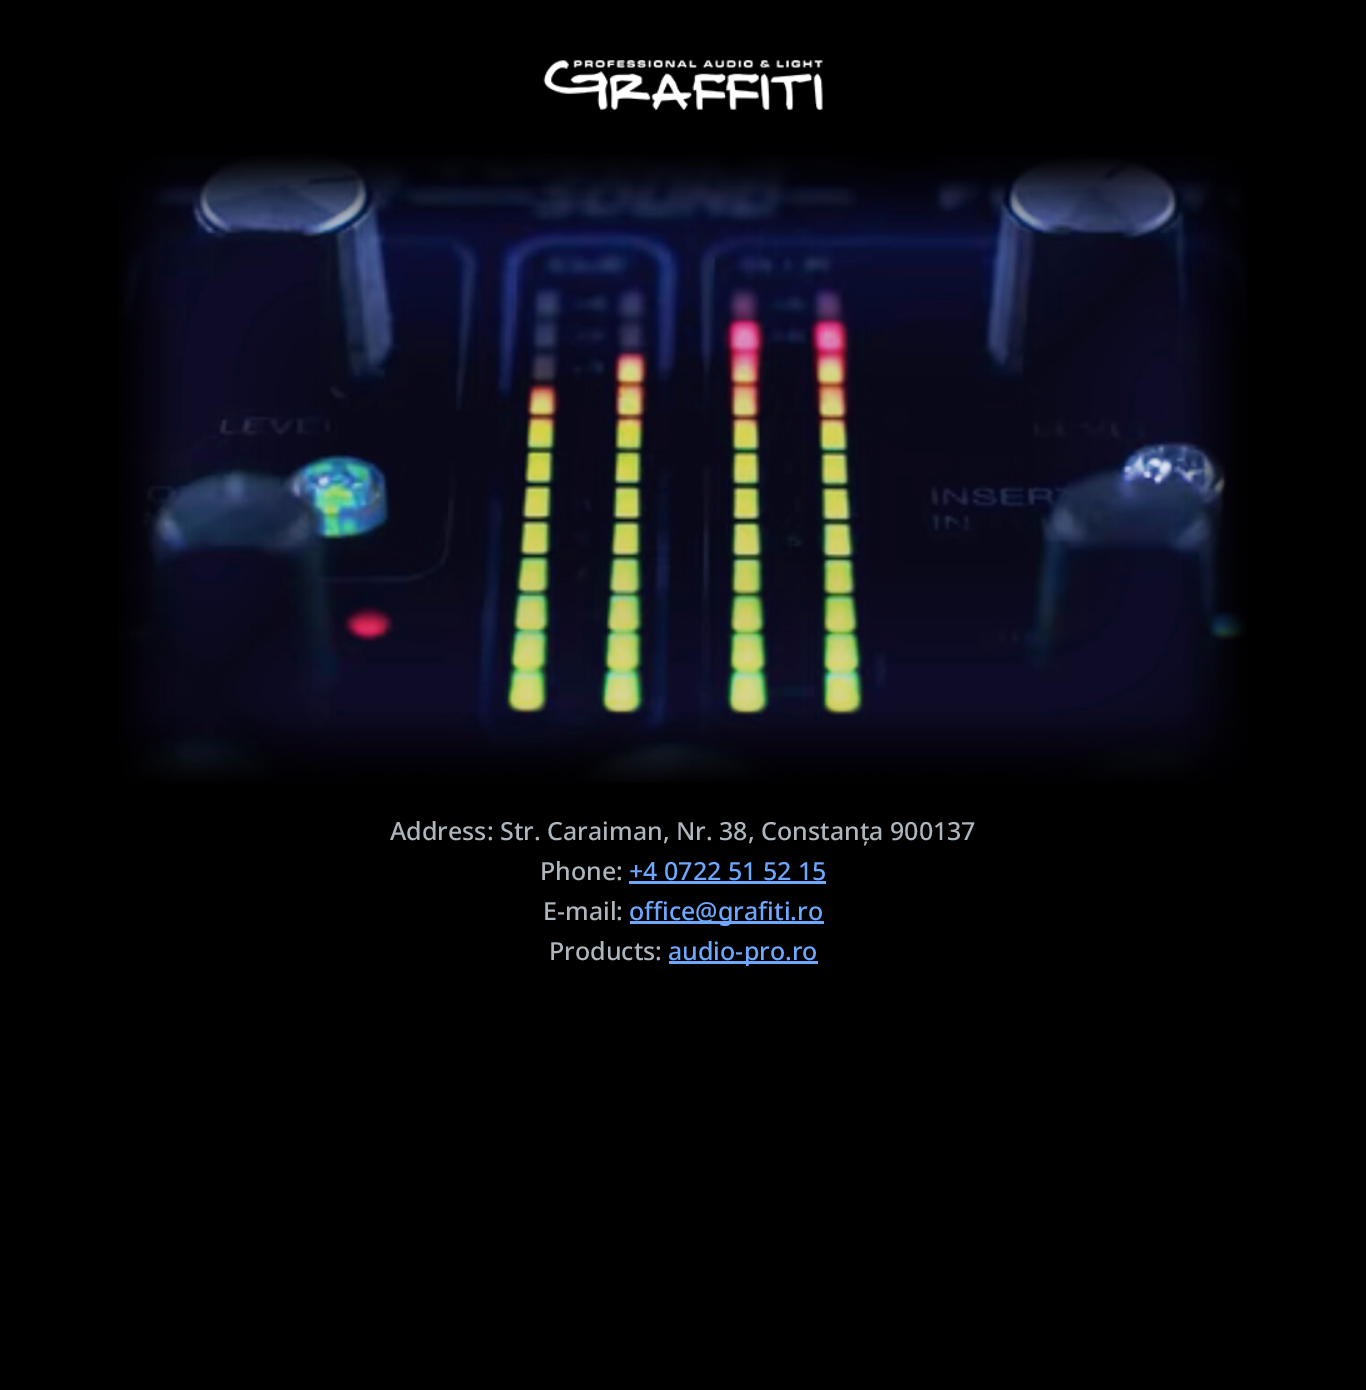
%!PS
<< /PageSize [1366 1390] >> setpagedevice
/C { dup -16 bitshift 255 div exch dup -8 bitshift 255 and 255 div exch 255 and 255 div setrgbcolor } def
/F { [ exch dup neg 0 0 3 -1 roll 0 0 ] selectfont } def
/T { moveto show } def
/R { rectfill } def
/I { 5 dict begin { /h /w /y /x /name } { exch def } forall
  gsave x y translate w h scale
  w h 8 [w 0 0 h 0 0] name (r) file false 3 colorimage grestore end } def
0 1390 translate 1 -1 scale
4 setmiterlimit
16#000000 C
0 0 1366 1390 R
(1.rgb) 543 60 280 50 I
(2.rgb) 117 154 1130 629 I
/NotoSans-Medium 25 F
16#ADB5BD C
(Address: Str. Caraiman, Nr. 38, Constanța 900137) 390 840 T
(Phone:) 540 880 T
16#6EA8FE C
(+4 0722 51 52 15) 629 880 T
629 881 197 3 R
16#ADB5BD C
(E-mail:) 543 920 T
16#6EA8FE C
630 921 194 3 R
(office@grafiti.ro) 629 920 T
16#ADB5BD C
(Products:) 549 960 T
16#6EA8FE C
669 961 149 3 R
(audio-pro.ro) 668 960 T
showpage
